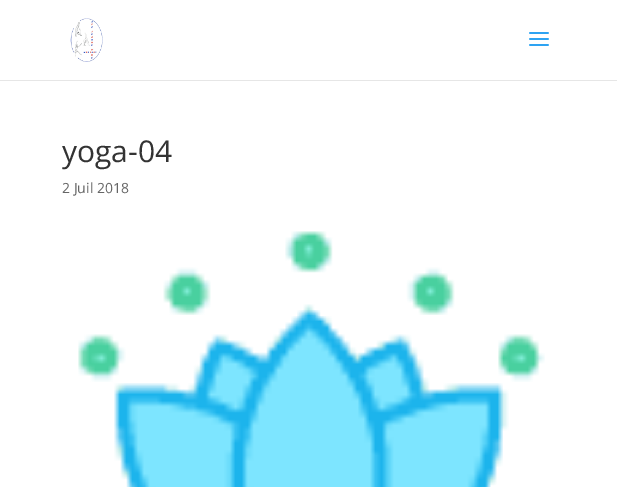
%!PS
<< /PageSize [617 487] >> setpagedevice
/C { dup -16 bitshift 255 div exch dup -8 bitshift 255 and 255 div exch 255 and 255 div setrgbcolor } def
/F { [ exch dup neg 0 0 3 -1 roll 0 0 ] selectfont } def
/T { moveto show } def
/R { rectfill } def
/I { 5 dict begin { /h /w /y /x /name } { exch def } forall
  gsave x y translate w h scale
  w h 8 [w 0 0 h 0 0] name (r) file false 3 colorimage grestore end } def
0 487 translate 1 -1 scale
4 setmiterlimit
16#FFFFFF C
0 0 617 487 R
16#E6E6E6 C
0 80 617 1 R
(1.rgb) 70 18 33 44 I
(2.rgb) 529 32 20 14 I
/OpenSans-Regular 30 F
16#333333 C
(yoga-04) 62 162 T
/OpenSans-Regular 14 F
16#666666 C
(2 Juil 2018) 62 193 T
(3.rgb) 78 231 467 256 I
showpage
